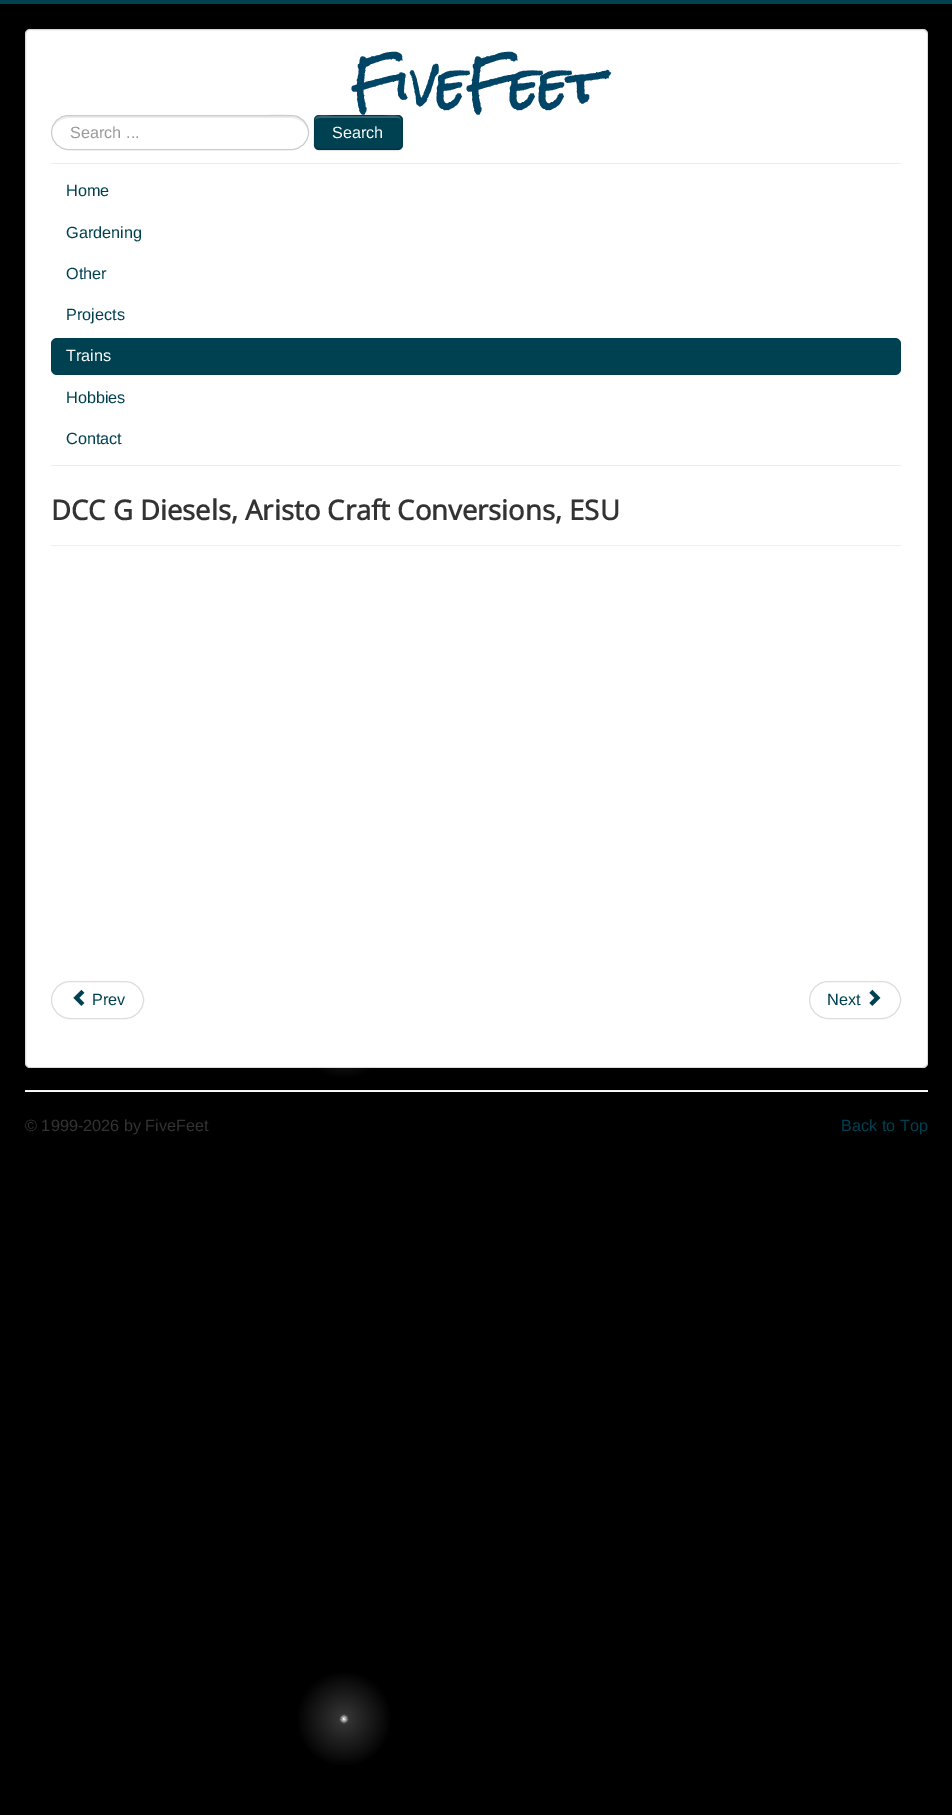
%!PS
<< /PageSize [952 1815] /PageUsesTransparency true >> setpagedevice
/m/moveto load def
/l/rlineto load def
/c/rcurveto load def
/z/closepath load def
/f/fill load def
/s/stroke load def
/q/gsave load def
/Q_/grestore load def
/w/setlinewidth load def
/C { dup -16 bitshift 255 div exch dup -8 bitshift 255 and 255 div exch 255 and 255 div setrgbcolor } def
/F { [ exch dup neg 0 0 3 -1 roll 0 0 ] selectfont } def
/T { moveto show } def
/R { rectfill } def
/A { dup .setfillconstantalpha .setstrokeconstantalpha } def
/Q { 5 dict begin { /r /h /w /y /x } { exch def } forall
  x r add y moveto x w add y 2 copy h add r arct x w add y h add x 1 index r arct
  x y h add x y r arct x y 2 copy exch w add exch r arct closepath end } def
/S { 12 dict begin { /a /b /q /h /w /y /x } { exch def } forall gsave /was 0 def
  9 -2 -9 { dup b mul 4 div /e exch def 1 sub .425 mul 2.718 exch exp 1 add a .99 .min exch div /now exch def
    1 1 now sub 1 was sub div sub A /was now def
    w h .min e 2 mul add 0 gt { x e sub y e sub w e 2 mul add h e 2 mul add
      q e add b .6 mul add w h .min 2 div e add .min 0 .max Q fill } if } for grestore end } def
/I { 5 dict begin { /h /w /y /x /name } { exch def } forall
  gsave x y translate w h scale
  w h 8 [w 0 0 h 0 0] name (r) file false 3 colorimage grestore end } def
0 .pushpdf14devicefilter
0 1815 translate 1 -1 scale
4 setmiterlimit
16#000000 C
0 0 952 1815 R
q 298 298 m 92 0 l 0 92 l -92 0 l z clip newpath 344 344 translate 486 486 scale
<< /ShadingType 3 /ColorSpace /DeviceRGB /Coords [0 0 0 0 0 1] /Extend [true true] /Function << /FunctionType 3 /Domain [0 1] /Functions [<< /FunctionType 2 /Domain [0 1] /C0 [1 1 1] /C1 [.2 .2 .2] /N 1 >> << /FunctionType 2 /Domain [0 1] /C0 [.2 .2 .2] /C1 [0 0 0] /N 1 >> << /FunctionType 2 /Domain [0 1] /C0 [0 0 0] /C1 [0 0 0] /N 1 >>] /Bounds [.01 .1] /Encode [0 1 0 1 0 1] >> >> shfill Q_
q 298 985 m 92 0 l 0 92 l -92 0 l z clip newpath 344 1031 translate 486 486 scale
<< /ShadingType 3 /ColorSpace /DeviceRGB /Coords [0 0 0 0 0 1] /Extend [true true] /Function << /FunctionType 3 /Domain [0 1] /Functions [<< /FunctionType 2 /Domain [0 1] /C0 [1 1 1] /C1 [.2 .2 .2] /N 1 >> << /FunctionType 2 /Domain [0 1] /C0 [.2 .2 .2] /C1 [0 0 0] /N 1 >> << /FunctionType 2 /Domain [0 1] /C0 [0 0 0] /C1 [0 0 0] /N 1 >>] /Bounds [.01 .1] /Encode [0 1 0 1 0 1] >> >> shfill Q_
q 298 1672 m 92 0 l 0 93 l -92 0 l z clip newpath 344 1719 translate 486 486 scale
<< /ShadingType 3 /ColorSpace /DeviceRGB /Coords [0 0 0 0 0 1] /Extend [true true] /Function << /FunctionType 3 /Domain [0 1] /Functions [<< /FunctionType 2 /Domain [0 1] /C0 [1 1 1] /C1 [.2 .2 .2] /N 1 >> << /FunctionType 2 /Domain [0 1] /C0 [.2 .2 .2] /C1 [0 0 0] /N 1 >> << /FunctionType 2 /Domain [0 1] /C0 [0 0 0] /C1 [0 0 0] /N 1 >>] /Bounds [.01 .1] /Encode [0 1 0 1 0 1] >> >> shfill Q_
16#004151 C
0 0 952 4 R
16#FFFFFF C
25 29 903 1039 5 Q f
0.15 A
16#000000 C
25.5 29.5 902 1038 4.5 Q s
/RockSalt-Bold 50 F
1 A
16#004466 C
(FiveFeet) 351 105 T
16#ECECEC C
69 118 m 222 0 l 9 0 17 7 17 15 c 1 -26 -43 -17 -54 -17 c -184 0 l -7 0 -13 4 -16 10 c 3 -5 9 -8 15 -8 c z f
16#CCCCCC C
51.5 115.5 257 34 17 Q s
/LiberationSans-Regular 16.25 F
16#999999 C
(Search ...) 70 138 T
16#000000 C
314 116 89 35 5 1 .05 S
16#004151 C
314 115 89 35 5 Q f
16#336774 C
319 118 m 79 0 l 2 0 3 1 3 3 c 0 -8 -12 -5 -17 -5 c -52 0 l -5 0 -17 -3 -17 5 c 0 -2 2 -3 4 -3 c z f
0.25 A
16#000000 C
1.2 w
400.5 148 m -2.5 1.5 l -79.5 0 l -3 -1.5 l s
0.1 A
315.5 148 m -2.5 -2.5 -1 -12.5 -1 -15.5 c 0 -19 -2.5 -17 17.5 -17 c 52.5 0 l 20 0 17.5 -2 17.5 17 c 0 3 1 13 -1.5 15.5 c s
1 A
16#FFFFFF C
(Search) 332 138 T
16#ECECEC C
51 163 850 1 R
51 465 850 1 R
16#004151 C
(Home) 66 196 T
(Gardening) 66 238 T
(Other) 66 279 T
(Projects) 66 320 T
51 338 850 37 6 Q f
16#FFFFFF C
(Trains) 66 361 T
16#004151 C
(Hobbies) 66 403 T
(Contact) 66 444 T
16#EEEEEE C
51 545 850 1 R
/OpenSans-Bold 27.5 F
16#333333 C
(DCC G Diesels, Aristo Craft Conversions, ESU) 51 520 T
16#DDDDDD C
1 w
51.5 981.5 92 37 18.5 Q s
(1.rgb) 73 989 12 17 I
/LiberationSans-Regular 16.25 F
16#004151 C
(Prev) 92 1005 T
16#DDDDDD C
809.5 981.5 91 37 18.5 Q s
16#004151 C
(Next) 827 1005 T
(2.rgb) 869 989 12 17 I
16#EEEEEE C
25 1090 903 1 R
16#FFFFFF C
25 1091 903 1 R
16#333333 C
(© 1999-2026 by FiveFeet) 25 1131 T
16#004151 C
(Back to Top) 841 1131 T
.poppdf14devicefilter showpage
